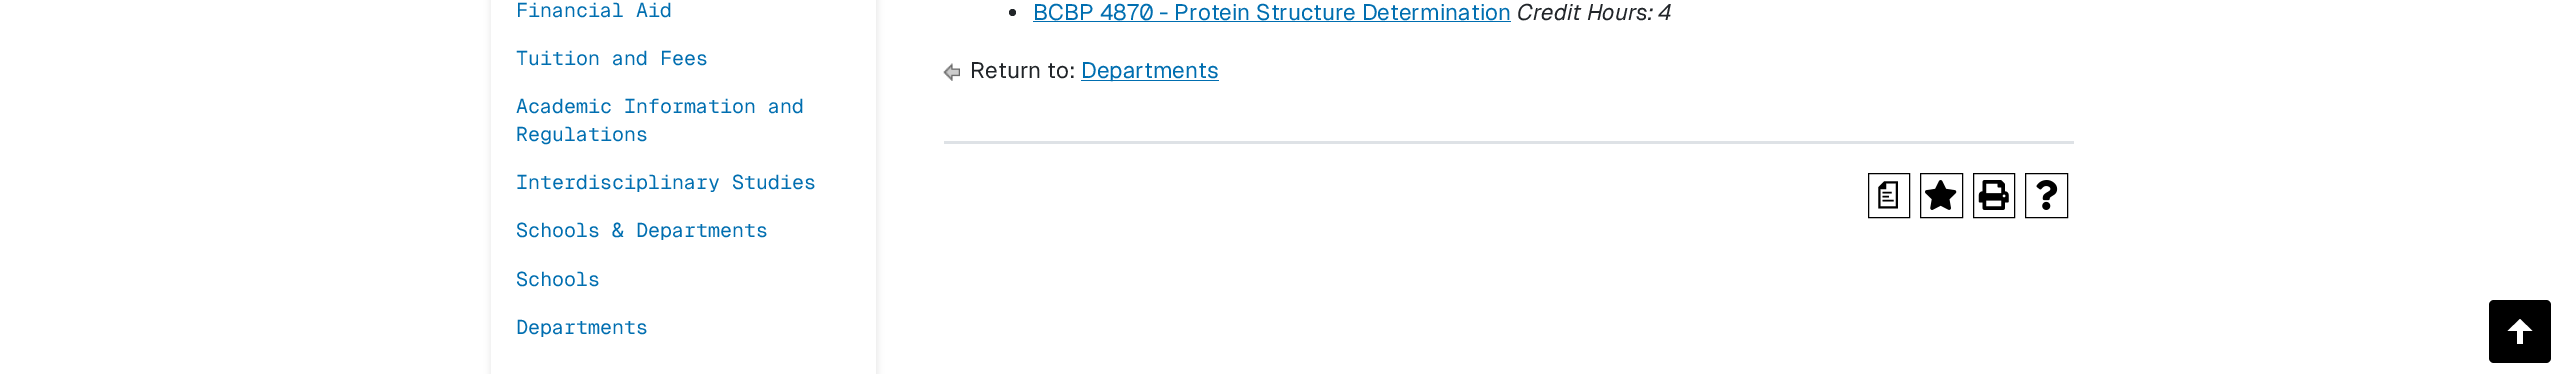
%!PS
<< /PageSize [2563 374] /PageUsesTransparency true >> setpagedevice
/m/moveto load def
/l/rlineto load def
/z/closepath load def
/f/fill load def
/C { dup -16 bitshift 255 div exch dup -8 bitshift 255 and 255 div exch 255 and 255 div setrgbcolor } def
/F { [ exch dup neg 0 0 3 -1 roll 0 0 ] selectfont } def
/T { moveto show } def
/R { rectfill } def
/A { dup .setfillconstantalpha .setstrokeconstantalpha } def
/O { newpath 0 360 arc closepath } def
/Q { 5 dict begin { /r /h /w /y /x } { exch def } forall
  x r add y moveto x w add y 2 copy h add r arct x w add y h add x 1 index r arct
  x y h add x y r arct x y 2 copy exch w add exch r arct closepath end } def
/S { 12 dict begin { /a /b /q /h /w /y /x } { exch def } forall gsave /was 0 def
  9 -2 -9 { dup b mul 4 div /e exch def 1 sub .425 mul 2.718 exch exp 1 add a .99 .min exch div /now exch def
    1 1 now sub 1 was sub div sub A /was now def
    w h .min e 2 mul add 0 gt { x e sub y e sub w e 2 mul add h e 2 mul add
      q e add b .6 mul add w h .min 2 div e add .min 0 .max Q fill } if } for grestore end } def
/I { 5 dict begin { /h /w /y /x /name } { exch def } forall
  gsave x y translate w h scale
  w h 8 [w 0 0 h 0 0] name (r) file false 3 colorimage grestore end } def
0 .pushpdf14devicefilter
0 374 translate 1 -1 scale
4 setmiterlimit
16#FFFFFF C
0 0 2563 374 R
16#000000 C
490 -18 388 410 9 3 .08 S
16#FFFFFF C
491 0 385 374 R
/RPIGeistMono-Regular 20 F
16#006EB0 C
(Financial Aid) 516 17 T
(Tuition and Fees) 516 65 T
(Academic Information and) 516 113 T
(Regulations) 516 141 T
(Interdisciplinary Studies) 516 189 T
(Schools & Departments) 516 237 T
(Schools) 516 286 T
(Departments) 516 334 T
16#212529 C
1012.5 12.5 3.5 O f
/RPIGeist-Regular 22.5 F
16#006EB0 C
(BCBP 4870 - Protein Structure Determination) 1033 20 T
1033 21 478 1 R
/RPIGeist-Italic 22.5 F
16#212529 C
(Credit Hours: 4) 1517 20 T
(1.rgb) 943 63 17 18 I
/RPIGeist-Regular 22.5 F
(Return to:) 970 78 T
16#006EB0 C
1081 80 138 1 R
(Departments) 1081 78 T
16#DEE2E6 C
944 141 1130 3 R
16#000000 C
1868.5 173.5 41 44 rectstroke
/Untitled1-Medium 30 F
(a) 1873 204 T
1920.5 173.5 42 44 rectstroke
(2.rgb) 1925 180 32 30 I
1973.5 173.5 41 44 rectstroke
(3.rgb) 1978 180 31 30 I
2025.5 173.5 42 44 rectstroke
(4.rgb) 2036 180 22 30 I
2489 300 62 63 5 Q f
16#FFFFFF C
2520 319 m -12.5 12 l 9.5 0 l 0 13 l 6 0 l 0 -13 l 9.5 0 l z f
.poppdf14devicefilter showpage
